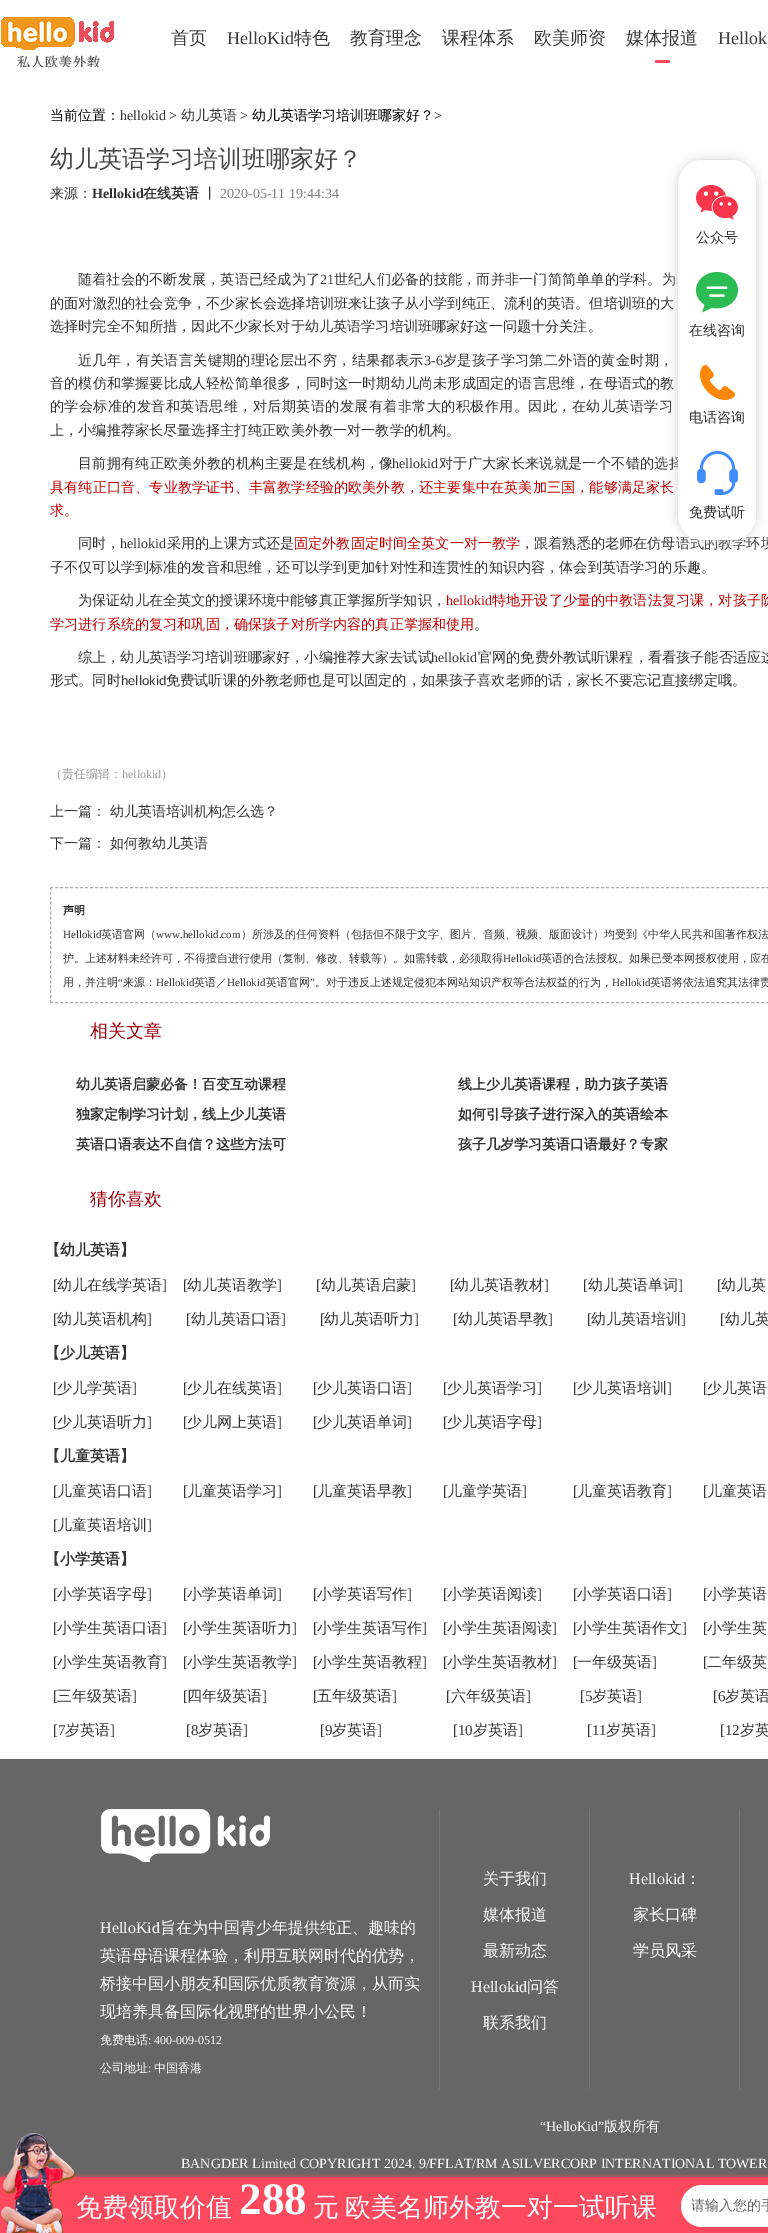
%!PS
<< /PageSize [768 2233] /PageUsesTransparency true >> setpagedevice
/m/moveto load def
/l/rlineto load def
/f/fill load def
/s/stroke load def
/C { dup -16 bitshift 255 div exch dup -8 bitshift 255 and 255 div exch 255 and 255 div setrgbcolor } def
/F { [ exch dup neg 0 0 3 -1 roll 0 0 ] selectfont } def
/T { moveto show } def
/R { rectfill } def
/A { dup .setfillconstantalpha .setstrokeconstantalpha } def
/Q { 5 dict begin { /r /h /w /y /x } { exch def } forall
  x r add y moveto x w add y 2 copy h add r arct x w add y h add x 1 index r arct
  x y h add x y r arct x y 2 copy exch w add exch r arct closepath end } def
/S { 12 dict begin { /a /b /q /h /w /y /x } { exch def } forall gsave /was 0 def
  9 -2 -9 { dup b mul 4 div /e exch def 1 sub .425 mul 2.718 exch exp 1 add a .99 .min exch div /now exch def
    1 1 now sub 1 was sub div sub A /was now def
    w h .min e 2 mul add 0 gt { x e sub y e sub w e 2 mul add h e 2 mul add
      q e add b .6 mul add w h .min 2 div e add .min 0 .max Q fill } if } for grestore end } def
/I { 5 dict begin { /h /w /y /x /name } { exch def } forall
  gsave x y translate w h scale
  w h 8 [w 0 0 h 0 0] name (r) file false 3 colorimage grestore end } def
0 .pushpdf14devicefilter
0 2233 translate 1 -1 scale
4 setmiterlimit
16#FFFFFF C
0 0 768 2233 R
(1.rgb) 1 17 113 50 I
/WenQuanYiZenHei-Medium 18 F
16#3B3B3B C
(首页) 171 44 T
/LiberationSerif-Regular 18 F
(HelloKid) 227 44 T
/WenQuanYiZenHei-Medium 18 F
(特色) 294 44 T
(教育理念) 350 44 T
(课程体系) 442 44 T
(欧美师资) 534 44 T
(媒体报道) 626 44 T
16#FD495D C
655 60 15 3 1.5 Q f
/LiberationSerif-Regular 18 F
16#3B3B3B C
(Hellok) 718 44 T
/WenQuanYiZenHei-Medium 14 F
16#000000 C
(当前位置：) 50 120 T
/LiberationSerif-Regular 14 F
16#333333 C
(hellokid) 120 120 T
16#000000 C
(>) 169 120 T
/WenQuanYiZenHei-Medium 14 F
16#333333 C
(幼儿英语) 181 120 T
/LiberationSerif-Regular 14 F
16#000000 C
(>) 240 120 T
/WenQuanYiZenHei-Medium 14 F
(幼儿英语学习培训班哪家好？) 252 120 T
/LiberationSerif-Regular 14 F
(>) 434 120 T
/WenQuanYiZenHei-Medium 24 F
16#474747 C
(幼儿英语学习培训班哪家好？) 50 167 T
/WenQuanYiZenHei-Medium 14 F
16#333333 C
(来源：) 50 198 T
/LiberationSerif-Bold 14 F
(Hellokid) 92 198 T
/WenQuanYiZenHei-Bold 14 F
(在线英语) 143 198 T
/WenQuanYiZenHei-Medium 14 F
(丨) 203 198 T
/LiberationSerif-Regular 14 F
16#818181 C
(2020-05-11 19:44:34) 220 198 T
/WenQuanYiZenHei-Medium 14.15 F
16#333333 C
78 284 m .1 0 (随着社会的不断发展，英语已经成为了) ashow
/LiberationSerif-Regular 14.15 F
(21) 320 284 T
/WenQuanYiZenHei-Medium 14.15 F
334 284 m .1 0 (世纪人们必备的技能，而并非一门简简单单的学科。为) ashow
50 308 m .05 0 (的面对激烈的社会竞争，不少家长会选择培训班来让孩子从小学到纯正、流利的英语。但培训班的大) ashow
(选择时完全不知所措，因此不少家长对于幼儿英语学习培训班哪家好这一问题十分关注。) 50 331 T
78 365 m .25 0 (近几年，有关语言关键期的理论层出不穷，结果都表示) ashow
/LiberationSerif-Regular 14.15 F
(3-6) 424 365 T
/WenQuanYiZenHei-Medium 14.15 F
443 365 m .25 0 (岁是孩子学习第二外语的黄金时期，) ashow
50 388 m .05 0 (音的模仿和掌握要比成人轻松简单很多，同时这一时期幼儿尚未形成固定的语言思维，在母语式的教) ashow
50 411 m .35 0 (的学会标准的发音和英语思维，对后期英语的发展有着非常大的积极作用。因此，在幼儿英语学习) ashow
(上，小编推荐家长尽量选择主打纯正欧美外教一对一教学的机构。) 50 435 T
78 468 m .2 0 (目前拥有纯正欧美外教的机构主要是在线机构，像) ashow
/LiberationSerif-Regular 14.15 F
(hellokid) 392 468 T
/WenQuanYiZenHei-Medium 14.15 F
439 468 m .2 0 (对于广大家长来说就是一个不错的选择) ashow
16#C00000 C
50 492 m .05 0 (具有纯正口音、专业教学证书、丰富教学经验的欧美外教，还主要集中在英美加三国，能够满足家长) ashow
(求。) 50 515 T
16#333333 C
(同时，) 78 548 T
/LiberationSerif-Regular 14.15 F
(hellokid) 120 548 T
/WenQuanYiZenHei-Medium 14.15 F
(采用的上课方式还是) 167 548 T
16#C00000 C
(固定外教固定时间全英文一对一教学) 294 548 T
16#333333 C
(，跟着熟悉的老师在仿母语式的教学环境) 520 548 T
(子不仅可以学到标准的发音和思维，还可以学到更加针对性和连贯性的知识内容，体会到英语学习的乐趣。) 50 572 T
(为保证幼儿在全英文的授课环境中能够真正掌握所学知识，) 78 605 T
/LiberationSerif-Regular 14.15 F
16#C00000 C
(hellokid) 446 605 T
/WenQuanYiZenHei-Medium 14.15 F
(特地开设了少量的中教语法复习课，对孩子阶) 492 605 T
(学习进行系统的复习和巩固，确保孩子对所学内容的真正掌握和使用) 50 629 T
16#333333 C
(。) 474 629 T
(综上，幼儿英语学习培训班哪家好，小编推荐大家去试试) 78 662 T
/LiberationSerif-Regular 14.15 F
(hellokid) 431 662 T
/WenQuanYiZenHei-Medium 14.15 F
(官网的免费外教试听课程，看看孩子能否适应这) 478 662 T
(形式。同时) 50 685 T
/Carlito-Regular 14.15 F
(hellokid) 121 685 T
/WenQuanYiZenHei-Medium 14.15 F
(免费试听课的外教老师也是可以固定的，如果孩子喜欢老师的话，家长不要忘记直接绑定哦。) 166 685 T
/WenQuanYiZenHei-Medium 12 F
16#999999 C
(（责任编辑：) 50 778 T
/LiberationSerif-Regular 12 F
(hellokid) 122 778 T
/WenQuanYiZenHei-Medium 12 F
(）) 161 778 T
/WenQuanYiZenHei-Medium 14 F
16#333333 C
(上一篇：) 50 816 T
(幼儿英语培训机构怎么选？) 110 816 T
(下一篇：) 50 848 T
(如何教幼儿英语) 110 848 T
16#AAAAAA C
[3 2.01] 0 setdash
50 887.5 m 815 0 l s
50 1002.5 m 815 0 l s
[3 1.91] 0 setdash
50.5 887 m 0 116 l s
/WenQuanYiZenHei-Bold 11 F
16#222222 C
(声明) 63 914 T
/LiberationSerif-Regular 11 F
16#333333 C
(Hellokid) 63 938 T
/WenQuanYiZenHei-Medium 11 F
(英语官网（) 101 938 T
/LiberationSerif-Regular 11 F
(www.hellokid.com) 156 938 T
/WenQuanYiZenHei-Medium 11 F
(）所涉及的任何资料（包括但不限于文字、图片、音频、视频、版面设计）均受到《中华人民共和国著作权法) 241 938 T
(护。上述材料未经许可，不得擅自进行使用（复制、修改、转载等）。如需转载，必须取得) 63 962 T
/LiberationSerif-Regular 11 F
(Hellokid) 503 962 T
/WenQuanYiZenHei-Medium 11 F
(英语的合法授权。如果已受本网授权使用，应在) 541 962 T
(用，并注明) 63 986 T
/LiberationSerif-Regular 11 F
(“) 118 986 T
/WenQuanYiZenHei-Medium 11 F
(来源：) 123 986 T
/LiberationSerif-Regular 11 F
(Hellokid) 156 986 T
/WenQuanYiZenHei-Medium 11 F
(英语／) 194 986 T
/LiberationSerif-Regular 11 F
(Hellokid) 227 986 T
/WenQuanYiZenHei-Medium 11 F
(英语官网) 266 986 T
/LiberationSerif-Regular 11 F
(”) 310 986 T
/WenQuanYiZenHei-Medium 11 F
(。对于违反上述规定侵犯本网站知识产权等合法权益的行为，) 315 986 T
/LiberationSerif-Regular 11 F
(Hellokid) 612 986 T
/WenQuanYiZenHei-Medium 11 F
(英语将依法追究其法律责) 650 986 T
/WenQuanYiZenHei-Medium 18 F
16#9B000E C
(相关文章) 90 1037 T
/WenQuanYiZenHei-Bold 14 F
16#333333 C
(幼儿英语启蒙必备！百变互动课程) 76 1089 T
(线上少儿英语课程，助力孩子英语) 458 1089 T
(独家定制学习计划，线上少儿英语) 76 1119 T
(如何引导孩子进行深入的英语绘本) 458 1119 T
(英语口语表达不自信？这些方法可) 76 1149 T
(孩子几岁学习英语口语最好？专家) 458 1149 T
/WenQuanYiZenHei-Medium 18 F
16#9B000E C
(猜你喜欢) 90 1205 T
/WenQuanYiZenHei-Bold 15 F
16#333333 C
(【幼儿英语】) 45 1255 T
/LiberationSerif-Regular 15 F
([) 53 1290 T
/WenQuanYiZenHei-Medium 15 F
(幼儿在线学英语) 57 1290 T
/LiberationSerif-Regular 15 F
(]) 162 1290 T
([) 183 1290 T
/WenQuanYiZenHei-Medium 15 F
(幼儿英语教学) 187 1290 T
/LiberationSerif-Regular 15 F
(]) 277 1290 T
([) 316 1290 T
/WenQuanYiZenHei-Medium 15 F
(幼儿英语启蒙) 321 1290 T
/LiberationSerif-Regular 15 F
(]) 411 1290 T
([) 450 1290 T
/WenQuanYiZenHei-Medium 15 F
(幼儿英语教材) 454 1290 T
/LiberationSerif-Regular 15 F
(]) 544 1290 T
([) 583 1290 T
/WenQuanYiZenHei-Medium 15 F
(幼儿英语单词) 588 1290 T
/LiberationSerif-Regular 15 F
(]) 678 1290 T
([) 717 1290 T
/WenQuanYiZenHei-Medium 15 F
(幼儿英) 721 1290 T
/LiberationSerif-Regular 15 F
([) 53 1324 T
/WenQuanYiZenHei-Medium 15 F
(幼儿英语机构) 57 1324 T
/LiberationSerif-Regular 15 F
(]) 147 1324 T
([) 186 1324 T
/WenQuanYiZenHei-Medium 15 F
(幼儿英语口语) 191 1324 T
/LiberationSerif-Regular 15 F
(]) 281 1324 T
([) 320 1324 T
/WenQuanYiZenHei-Medium 15 F
(幼儿英语听力) 324 1324 T
/LiberationSerif-Regular 15 F
(]) 414 1324 T
([) 453 1324 T
/WenQuanYiZenHei-Medium 15 F
(幼儿英语早教) 458 1324 T
/LiberationSerif-Regular 15 F
(]) 548 1324 T
([) 587 1324 T
/WenQuanYiZenHei-Medium 15 F
(幼儿英语培训) 591 1324 T
/LiberationSerif-Regular 15 F
(]) 681 1324 T
([) 720 1324 T
/WenQuanYiZenHei-Medium 15 F
(幼儿英) 725 1324 T
/WenQuanYiZenHei-Bold 15 F
(【少儿英语】) 45 1358 T
/LiberationSerif-Regular 15 F
([) 53 1393 T
/WenQuanYiZenHei-Medium 15 F
(少儿学英语) 57 1393 T
/LiberationSerif-Regular 15 F
(]) 132 1393 T
([) 183 1393 T
/WenQuanYiZenHei-Medium 15 F
(少儿在线英语) 187 1393 T
/LiberationSerif-Regular 15 F
(]) 277 1393 T
([) 313 1393 T
/WenQuanYiZenHei-Medium 15 F
(少儿英语口语) 317 1393 T
/LiberationSerif-Regular 15 F
(]) 407 1393 T
([) 443 1393 T
/WenQuanYiZenHei-Medium 15 F
(少儿英语学习) 447 1393 T
/LiberationSerif-Regular 15 F
(]) 537 1393 T
([) 573 1393 T
/WenQuanYiZenHei-Medium 15 F
(少儿英语培训) 577 1393 T
/LiberationSerif-Regular 15 F
(]) 667 1393 T
([) 703 1393 T
/WenQuanYiZenHei-Medium 15 F
(少儿英语) 707 1393 T
/LiberationSerif-Regular 15 F
([) 53 1427 T
/WenQuanYiZenHei-Medium 15 F
(少儿英语听力) 57 1427 T
/LiberationSerif-Regular 15 F
(]) 147 1427 T
([) 183 1427 T
/WenQuanYiZenHei-Medium 15 F
(少儿网上英语) 187 1427 T
/LiberationSerif-Regular 15 F
(]) 277 1427 T
([) 313 1427 T
/WenQuanYiZenHei-Medium 15 F
(少儿英语单词) 317 1427 T
/LiberationSerif-Regular 15 F
(]) 407 1427 T
([) 443 1427 T
/WenQuanYiZenHei-Medium 15 F
(少儿英语字母) 447 1427 T
/LiberationSerif-Regular 15 F
(]) 537 1427 T
/WenQuanYiZenHei-Bold 15 F
(【儿童英语】) 45 1461 T
/LiberationSerif-Regular 15 F
([) 53 1496 T
/WenQuanYiZenHei-Medium 15 F
(儿童英语口语) 57 1496 T
/LiberationSerif-Regular 15 F
(]) 147 1496 T
([) 183 1496 T
/WenQuanYiZenHei-Medium 15 F
(儿童英语学习) 187 1496 T
/LiberationSerif-Regular 15 F
(]) 277 1496 T
([) 313 1496 T
/WenQuanYiZenHei-Medium 15 F
(儿童英语早教) 317 1496 T
/LiberationSerif-Regular 15 F
(]) 407 1496 T
([) 443 1496 T
/WenQuanYiZenHei-Medium 15 F
(儿童学英语) 447 1496 T
/LiberationSerif-Regular 15 F
(]) 522 1496 T
([) 573 1496 T
/WenQuanYiZenHei-Medium 15 F
(儿童英语教育) 577 1496 T
/LiberationSerif-Regular 15 F
(]) 667 1496 T
([) 703 1496 T
/WenQuanYiZenHei-Medium 15 F
(儿童英语) 707 1496 T
/LiberationSerif-Regular 15 F
([) 53 1530 T
/WenQuanYiZenHei-Medium 15 F
(儿童英语培训) 57 1530 T
/LiberationSerif-Regular 15 F
(]) 147 1530 T
/WenQuanYiZenHei-Bold 15 F
(【小学英语】) 45 1564 T
/LiberationSerif-Regular 15 F
([) 53 1599 T
/WenQuanYiZenHei-Medium 15 F
(小学英语字母) 57 1599 T
/LiberationSerif-Regular 15 F
(]) 147 1599 T
([) 183 1599 T
/WenQuanYiZenHei-Medium 15 F
(小学英语单词) 187 1599 T
/LiberationSerif-Regular 15 F
(]) 277 1599 T
([) 313 1599 T
/WenQuanYiZenHei-Medium 15 F
(小学英语写作) 317 1599 T
/LiberationSerif-Regular 15 F
(]) 407 1599 T
([) 443 1599 T
/WenQuanYiZenHei-Medium 15 F
(小学英语阅读) 447 1599 T
/LiberationSerif-Regular 15 F
(]) 537 1599 T
([) 573 1599 T
/WenQuanYiZenHei-Medium 15 F
(小学英语口语) 577 1599 T
/LiberationSerif-Regular 15 F
(]) 667 1599 T
([) 703 1599 T
/WenQuanYiZenHei-Medium 15 F
(小学英语) 707 1599 T
/LiberationSerif-Regular 15 F
([) 53 1633 T
/WenQuanYiZenHei-Medium 15 F
(小学生英语口语) 57 1633 T
/LiberationSerif-Regular 15 F
(]) 162 1633 T
([) 183 1633 T
/WenQuanYiZenHei-Medium 15 F
(小学生英语听力) 187 1633 T
/LiberationSerif-Regular 15 F
(]) 292 1633 T
([) 313 1633 T
/WenQuanYiZenHei-Medium 15 F
(小学生英语写作) 317 1633 T
/LiberationSerif-Regular 15 F
(]) 422 1633 T
([) 443 1633 T
/WenQuanYiZenHei-Medium 15 F
(小学生英语阅读) 447 1633 T
/LiberationSerif-Regular 15 F
(]) 552 1633 T
([) 573 1633 T
/WenQuanYiZenHei-Medium 15 F
(小学生英语作文) 577 1633 T
/LiberationSerif-Regular 15 F
(]) 682 1633 T
([) 703 1633 T
/WenQuanYiZenHei-Medium 15 F
(小学生英) 707 1633 T
/LiberationSerif-Regular 15 F
([) 53 1667 T
/WenQuanYiZenHei-Medium 15 F
(小学生英语教育) 57 1667 T
/LiberationSerif-Regular 15 F
(]) 162 1667 T
([) 183 1667 T
/WenQuanYiZenHei-Medium 15 F
(小学生英语教学) 187 1667 T
/LiberationSerif-Regular 15 F
(]) 292 1667 T
([) 313 1667 T
/WenQuanYiZenHei-Medium 15 F
(小学生英语教程) 317 1667 T
/LiberationSerif-Regular 15 F
(]) 422 1667 T
([) 443 1667 T
/WenQuanYiZenHei-Medium 15 F
(小学生英语教材) 447 1667 T
/LiberationSerif-Regular 15 F
(]) 552 1667 T
([) 573 1667 T
/WenQuanYiZenHei-Medium 15 F
(一年级英语) 577 1667 T
/LiberationSerif-Regular 15 F
(]) 652 1667 T
([) 703 1667 T
/WenQuanYiZenHei-Medium 15 F
(二年级英) 707 1667 T
/LiberationSerif-Regular 15 F
([) 53 1701 T
/WenQuanYiZenHei-Medium 15 F
(三年级英语) 57 1701 T
/LiberationSerif-Regular 15 F
(]) 132 1701 T
([) 183 1701 T
/WenQuanYiZenHei-Medium 15 F
(四年级英语) 187 1701 T
/LiberationSerif-Regular 15 F
(]) 262 1701 T
([) 313 1701 T
/WenQuanYiZenHei-Medium 15 F
(五年级英语) 317 1701 T
/LiberationSerif-Regular 15 F
(]) 392 1701 T
([) 446 1701 T
/WenQuanYiZenHei-Medium 15 F
(六年级英语) 451 1701 T
/LiberationSerif-Regular 15 F
(]) 526 1701 T
([5) 580 1701 T
/WenQuanYiZenHei-Medium 15 F
(岁英语) 592 1701 T
/LiberationSerif-Regular 15 F
(]) 637 1701 T
([6) 713 1701 T
/WenQuanYiZenHei-Medium 15 F
(岁英语) 725 1701 T
/LiberationSerif-Regular 15 F
([7) 53 1735 T
/WenQuanYiZenHei-Medium 15 F
(岁英语) 65 1735 T
/LiberationSerif-Regular 15 F
(]) 110 1735 T
([8) 186 1735 T
/WenQuanYiZenHei-Medium 15 F
(岁英语) 198 1735 T
/LiberationSerif-Regular 15 F
(]) 243 1735 T
([9) 320 1735 T
/WenQuanYiZenHei-Medium 15 F
(岁英语) 332 1735 T
/LiberationSerif-Regular 15 F
(]) 377 1735 T
([10) 453 1735 T
/WenQuanYiZenHei-Medium 15 F
(岁英语) 473 1735 T
/LiberationSerif-Regular 15 F
(]) 518 1735 T
([11) 587 1735 T
/WenQuanYiZenHei-Medium 15 F
(岁英语) 606 1735 T
/LiberationSerif-Regular 15 F
(]) 651 1735 T
([12) 720 1735 T
/WenQuanYiZenHei-Medium 15 F
(岁英) 740 1735 T
16#CCCCCC C
678 160 78 380 25 5 1 S
16#FFFFFF C
678 160 78 380 25 Q f
(2.rgb) 696 185 42 35 I
/WenQuanYiZenHei-Medium 14 F
16#2D2D2D C
(公众号) 696 242 T
(3.rgb) 696 272 42 41 I
(在线咨询) 689 335 T
(4.rgb) 700 365 35 35 I
(电话咨询) 689 422 T
(5.rgb) 697 451 41 44 I
(免费试听) 689 517 T
16#666666 C
0 1759 768 418 R
16#777777 C
439 1809 1 280 R
(6.rgb) 101 1809 169 53 I
/LiberationSerif-Regular 16 F
16#FFFFFF C
(HelloKid) 100 1933 T
/WenQuanYiZenHei-Medium 16 F
(旨在为中国青少年提供纯正、趣味的) 160 1933 T
(英语母语课程体验，利用互联网时代的优势，) 100 1961 T
(桥接中国小朋友和国际优质教育资源，从而实) 100 1989 T
(现培养具备国际化视野的世界小公民！) 100 2017 T
/WenQuanYiZenHei-Medium 12 F
(免费电话) 100 2044 T
/LiberationSerif-Regular 12 F
(: 400-009-0512) 148 2044 T
/WenQuanYiZenHei-Medium 12 F
(公司地址) 100 2072 T
/LiberationSerif-Regular 12 F
(:) 148 2072 T
/WenQuanYiZenHei-Medium 12 F
(中国香港) 154 2072 T
16#777777 C
589 1809 1 280 R
/WenQuanYiZenHei-Medium 16 F
16#FFFFFF C
(关于我们) 483 1884 T
(媒体报道) 483 1920 T
(最新动态) 483 1956 T
/LiberationSerif-Regular 16 F
(Hellokid) 471 1992 T
/WenQuanYiZenHei-Medium 16 F
(问答) 527 1992 T
(联系我们) 483 2028 T
16#777777 C
739 1809 1 280 R
/LiberationSerif-Regular 16 F
16#FFFFFF C
(Hellokid) 629 1884 T
/WenQuanYiZenHei-Medium 16 F
(：) 685 1884 T
(家长口碑) 633 1920 T
(学员风采) 633 1956 T
/LiberationSerif-Regular 14 F
(“HelloKid”) 540 2131 T
/WenQuanYiZenHei-Medium 14 F
(版权所有) 604 2131 T
/LiberationSerif-Regular 14 F
(BANGDER Limited COPYRIGHT 2024. 9/FFLAT/RM ASILVERCORP INTERNATIONAL TOWER) 181 2168 T
16#FD495D C
0 2177 768 56 0 2.5 1 S
0 2177 768 56 R
(7.rgb) 1 2133 74 100 I
/WenQuanYiZenHei-Medium 26 F
16#FFFFFF C
(免费领取价值) 76 2216 T
/LiberationSerif-Bold 45 F
(288) 239 2214 T
/WenQuanYiZenHei-Medium 26 F
(元) 313 2216 T
(欧美名师外教一对一试听课) 345 2216 T
681 2185 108 42 21 Q f
/WenQuanYiZenHei-Medium 14 F
16#666666 C
(请输入您的手) 691 2210 T
.poppdf14devicefilter showpage
